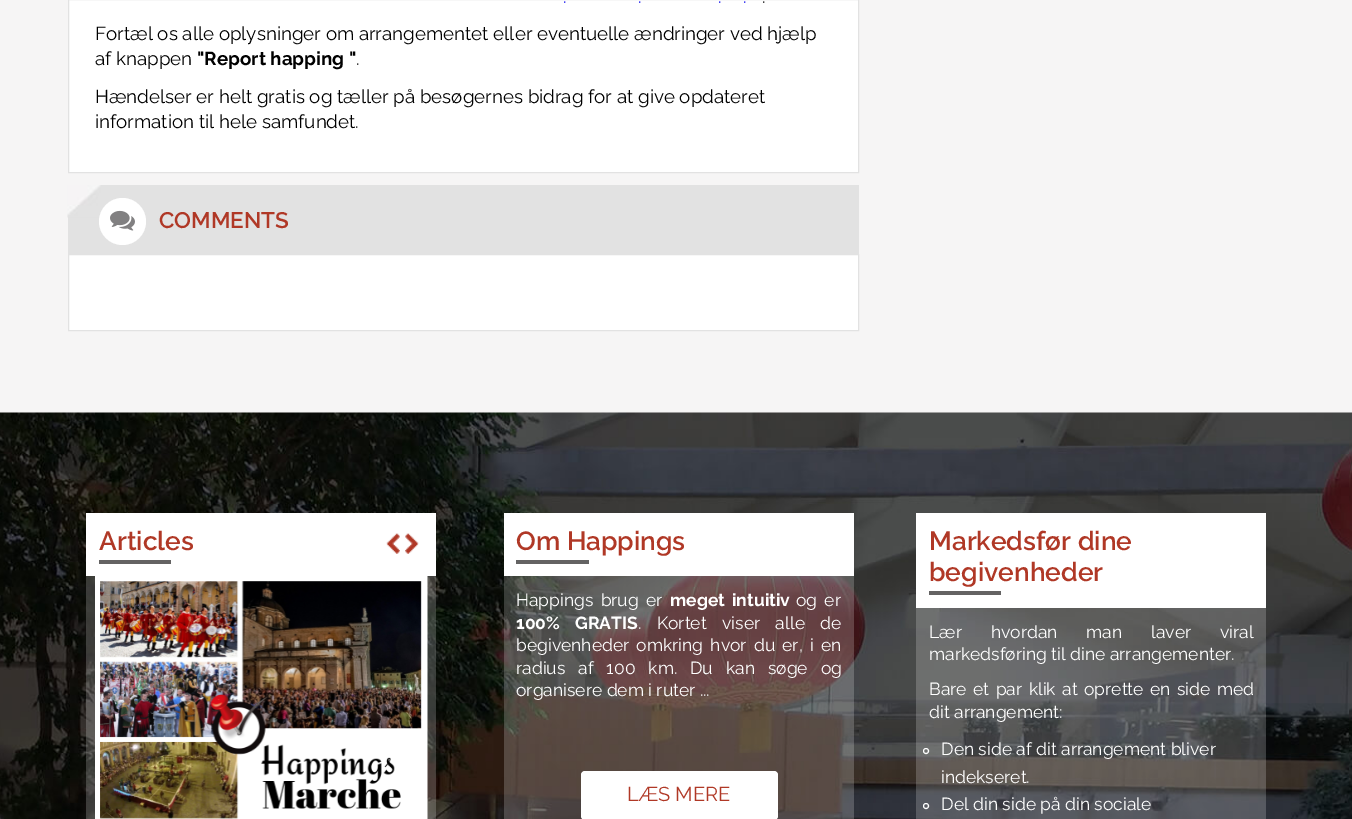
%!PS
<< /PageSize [1352 819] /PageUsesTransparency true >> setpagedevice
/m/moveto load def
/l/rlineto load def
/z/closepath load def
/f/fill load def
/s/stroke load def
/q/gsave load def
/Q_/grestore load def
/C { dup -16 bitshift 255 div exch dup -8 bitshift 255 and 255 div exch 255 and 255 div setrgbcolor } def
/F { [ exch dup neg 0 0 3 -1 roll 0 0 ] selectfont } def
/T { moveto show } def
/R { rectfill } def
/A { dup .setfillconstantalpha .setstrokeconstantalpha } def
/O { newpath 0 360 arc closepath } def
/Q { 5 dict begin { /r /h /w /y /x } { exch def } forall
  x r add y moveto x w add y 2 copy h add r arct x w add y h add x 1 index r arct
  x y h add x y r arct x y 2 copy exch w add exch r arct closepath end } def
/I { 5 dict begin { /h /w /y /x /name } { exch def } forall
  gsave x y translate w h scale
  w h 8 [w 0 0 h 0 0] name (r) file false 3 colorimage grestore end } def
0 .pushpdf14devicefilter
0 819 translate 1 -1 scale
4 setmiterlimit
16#F6F5F5 C
0 0 1352 819 R
16#FFFFFF C
68.5 -.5 m 790 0 l 0 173 l -790 0 l z q f Q_
16#E2E2E2 C
s
/Raleway-Regular 18.75 F
16#0000EE C
(.) 563 3 T
(.) 638 3 T
(.) 718 3 T
(.) 743 3 T
16#000000 C
(.) 762 3 T
(Fortæl os alle oplysninger om arrangementet eller eventuelle ændringer ved hjælp) 95 40 T
(af knappen) 95 65 T
/Raleway-Bold 18.75 F
("Report happing ") 197 65 T
/Raleway-Regular 18.75 F
(.) 356 65 T
(Hændelser er helt gratis og tæller på besøgernes bidrag for at give opdateret) 95 103 T
(information til hele samfundet.) 95 128 T
16#E2E2E2 C
68 185 791 69 R
(1.rgb) 67 185 34 33 I
16#FFFFFF C
122.5 221.5 23.5 O f
(2.rgb) 110 210 25 21 I
/Raleway-SemiBold 22.5 F
16#B03826 C
(COMMENTS) 159 228 T
16#FFFFFF C
68.5 254.5 m 790 0 l 0 76 l -790 0 l z q f Q_
16#E2E2E2 C
s
(3.rgb) 0 412 1352 407 I
0.2 A
16#FFFFFF C
86 576 350 243 R
1 A
86 513 350 63 R
/Raleway-SemiBold 26.25 F
16#B03826 C
(Articles) 99 550 T
16#646363 C
99 560 72 4 R
(4.rgb) 386 533 14 21 I
(5.rgb) 405 533 14 21 I
(6.rgb) 95 576 333 243 I
0.2 A
16#FFFFFF C
504 576 350 243 R
1 A
504 513 350 63 R
16#B03826 C
(Om Happings) 516 550 T
16#646363 C
516 560 73 4 R
/Raleway-Regular 17.5 F
16#FFFFFF C
516 606 m 2.75 0 32 (Happings brug er) widthshow
/Raleway-Bold 17.5 F
670 606 m 2.75 0 32 (meget intuitiv) widthshow
/Raleway-Regular 17.5 F
796 606 m 2.75 0 32 (og er) widthshow
/Raleway-Bold 17.5 F
516 629 m 11 0 32 (100% GRATIS) widthshow
/Raleway-Regular 17.5 F
638 629 m 11 0 32 (. Kortet viser alle de) widthshow
516 651 m 2.75 0 32 (begivenheder omkring hvor du er, i en) widthshow
516 674 m 8.5 0 32 (radius af 100 km. Du kan søge og) widthshow
(organisere dem i ruter ...) 516 696 T
581 771 197 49 4 Q f
/Raleway-Regular 20 F
16#B03826 C
(LÆS MERE) 627 801 T
0.2 A
16#FFFFFF C
916 608 350 211 R
1 A
916 513 350 95 R
/Raleway-SemiBold 26.25 F
16#B03826 C
(Markedsfør dine) 929 550 T
(begivenheder) 929 581 T
16#646363 C
929 591 72 4 R
/Raleway-Regular 17.5 F
16#FFFFFF C
929 638 m 24.5 0 32 (Lær hvordan man laver viral) widthshow
(markedsføring til dine arrangementer.) 929 660 T
929 695 m 2 0 32 (Bare et par klik at oprette en side med) widthshow
(dit arrangement:) 929 718 T
926 751 2.5 O s
(Den side af dit arrangement bliver) 941 755 T
(indekseret.) 941 783 T
926 806 2.5 O s
(Del din side på din sociale) 941 810 T
.poppdf14devicefilter showpage
